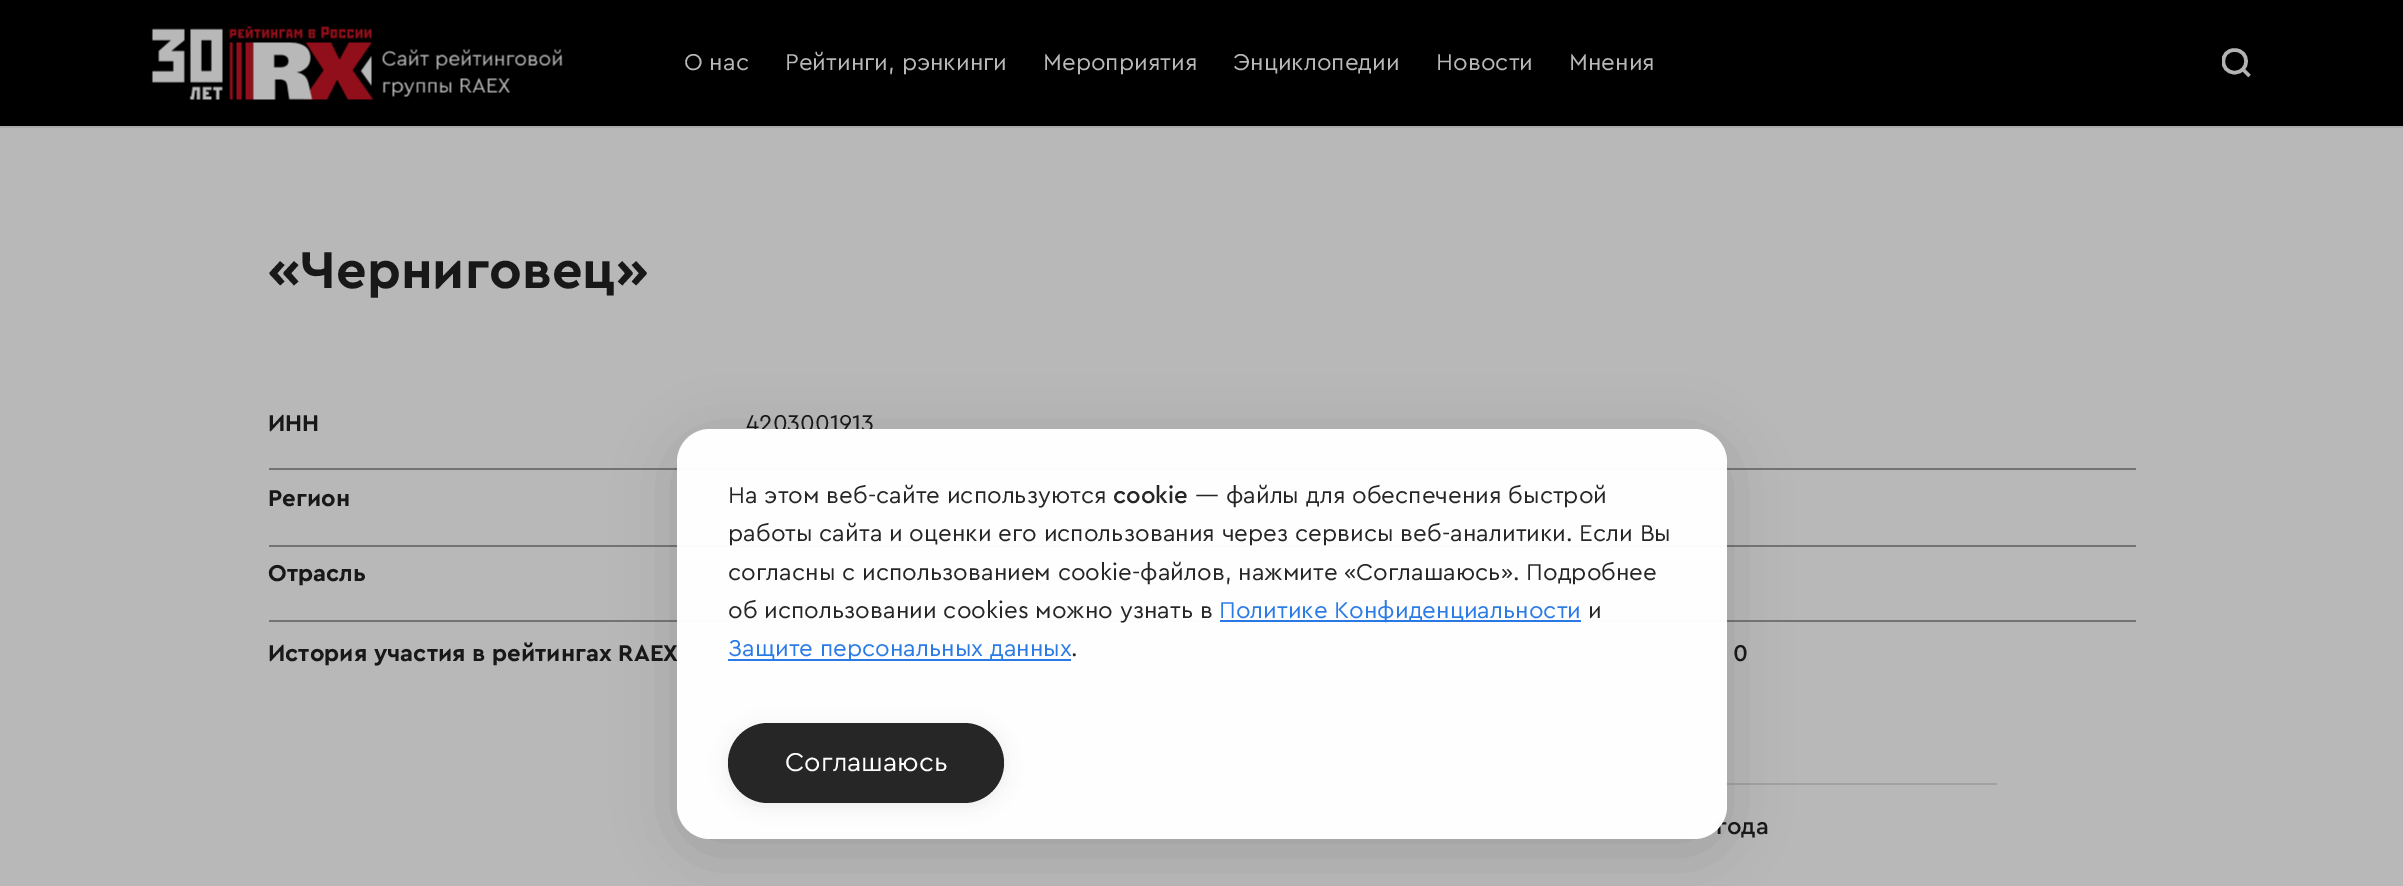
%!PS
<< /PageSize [2403 886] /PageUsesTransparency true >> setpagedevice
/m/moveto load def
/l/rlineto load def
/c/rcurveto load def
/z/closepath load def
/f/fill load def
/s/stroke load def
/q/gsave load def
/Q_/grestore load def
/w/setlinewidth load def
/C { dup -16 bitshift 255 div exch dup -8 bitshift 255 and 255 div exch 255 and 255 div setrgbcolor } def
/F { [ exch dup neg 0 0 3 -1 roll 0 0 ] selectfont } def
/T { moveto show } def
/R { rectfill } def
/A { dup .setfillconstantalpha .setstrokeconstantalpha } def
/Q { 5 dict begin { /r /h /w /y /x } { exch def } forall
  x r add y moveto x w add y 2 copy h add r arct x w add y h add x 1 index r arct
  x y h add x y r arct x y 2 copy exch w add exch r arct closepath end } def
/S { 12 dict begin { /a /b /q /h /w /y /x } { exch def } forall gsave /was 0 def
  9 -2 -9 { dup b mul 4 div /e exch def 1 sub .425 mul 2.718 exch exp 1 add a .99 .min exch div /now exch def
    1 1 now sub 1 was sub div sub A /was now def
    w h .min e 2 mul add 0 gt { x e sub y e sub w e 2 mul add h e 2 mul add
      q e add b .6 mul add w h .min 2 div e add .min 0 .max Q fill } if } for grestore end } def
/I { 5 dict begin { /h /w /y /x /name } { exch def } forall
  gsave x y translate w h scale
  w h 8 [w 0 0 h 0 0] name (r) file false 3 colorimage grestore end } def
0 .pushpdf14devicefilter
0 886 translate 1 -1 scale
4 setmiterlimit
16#B8B8B8 C
0 0 2403 886 R
16#000000 C
0 0 2403 126 R
16#AAAAAA C
0 126 2403 2 R
(1.rgb) 151 26 412 74 I
/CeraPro-Regular 24 F
16#B8B8B8 C
(О нас) 684 70 T
(Рейтинги, рэнкинги) 785 70 T
(Мероприятия) 1043 70 T
(Энциклопедии) 1233 70 T
(Новости) 1436 70 T
(Мнения) 1569 70 T
q
2222 48 30 30 rectclip
16#B3B3B3 C
3.5 w
2234.5 72.5 m 15.5 0 15.5 -22.5 0 -22.5 c -15 0 -15 22.5 0 22.5 c z s
Q_
16#B3B3B3 C
3.5 w
2242.5 69 m 7 7 l s
/CeraPro-Bold 54 F
16#181818 C
(«Черниговец») 268 288 T
16#737373 C
269 468 1867 2 R
/CeraPro-Bold 24 F
16#181818 C
(ИНН) 268 431 T
/CeraPro-Regular 24 F
(4203001913) 746 431 T
16#737373 C
269 545 1867 2 R
/CeraPro-Bold 24 F
16#181818 C
(Регион) 268 506 T
16#737373 C
269 620 1867 2 R
16#181818 C
(Отрасль) 268 581 T
(История участия в рейтингах RAEX) 268 661 T
/CeraPro-Medium 24 F
(0) 1733 661 T
746 729 193 2 R
16#A0A3A6 C
746 783 1251 2 R
16#181818 C
(года) 1716 834 T
q
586 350 m 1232 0 l 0 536 l -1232 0 l z 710 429 m 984 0 l 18 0 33 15 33 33 c 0 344 l 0 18 -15 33 -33 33 c -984 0 l -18 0 -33 -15 -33 -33 c 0 -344 l 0 -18 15 -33 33 -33 c z eoclip newpath
16#000000 C
677 441 1050 410 33 30 .13 S
Q_
0.98 A
16#FFFFFF C
677 429 1050 410 33 Q f
/CeraPro-Regular 24 F
1 A
16#262626 C
(На этом веб-сайте используются) 728 503 T
/CeraPro-Medium 24 F
(cookie) 1113 503 T
/CeraPro-Regular 24 F
(— файлы для обеспечения быстрой) 1195 503 T
(работы сайта и оценки его использования через сервисы веб-аналитики. Если Вы) 728 541 T
(согласны с использованием cookie-файлов, нажмите «Соглашаюсь». Подробнее) 728 580 T
(об использовании cookies можно узнать в) 728 618 T
16#2978E3 C
1220 620 361 2 R
16#2B7BE5 C
(Политике Конфиденциальности) 1219 618 T
16#262626 C
(и) 1588 618 T
0.98 A
16#2778E5 C
728 659 343 2 R
1 A
16#2B7BE5 C
(Защите персональных данных) 728 656 T
16#262626 C
(.) 1071 656 T
q
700 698 m 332 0 l 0 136 l -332 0 l z 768 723 m 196 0 l 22 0 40 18 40 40 c 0 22 -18 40 -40 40 c -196 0 l -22 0 -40 -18 -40 -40 c 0 -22 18 -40 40 -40 c z eoclip newpath
16#000000 C
728 726 276 80 40 9 .07 S
Q_
0.98 A
16#222222 C
728 723 276 80 40 Q f
/CeraPro-Regular 27 F
1 A
16#FEFEFE C
(Соглашаюсь) 785 771 T
.poppdf14devicefilter showpage
